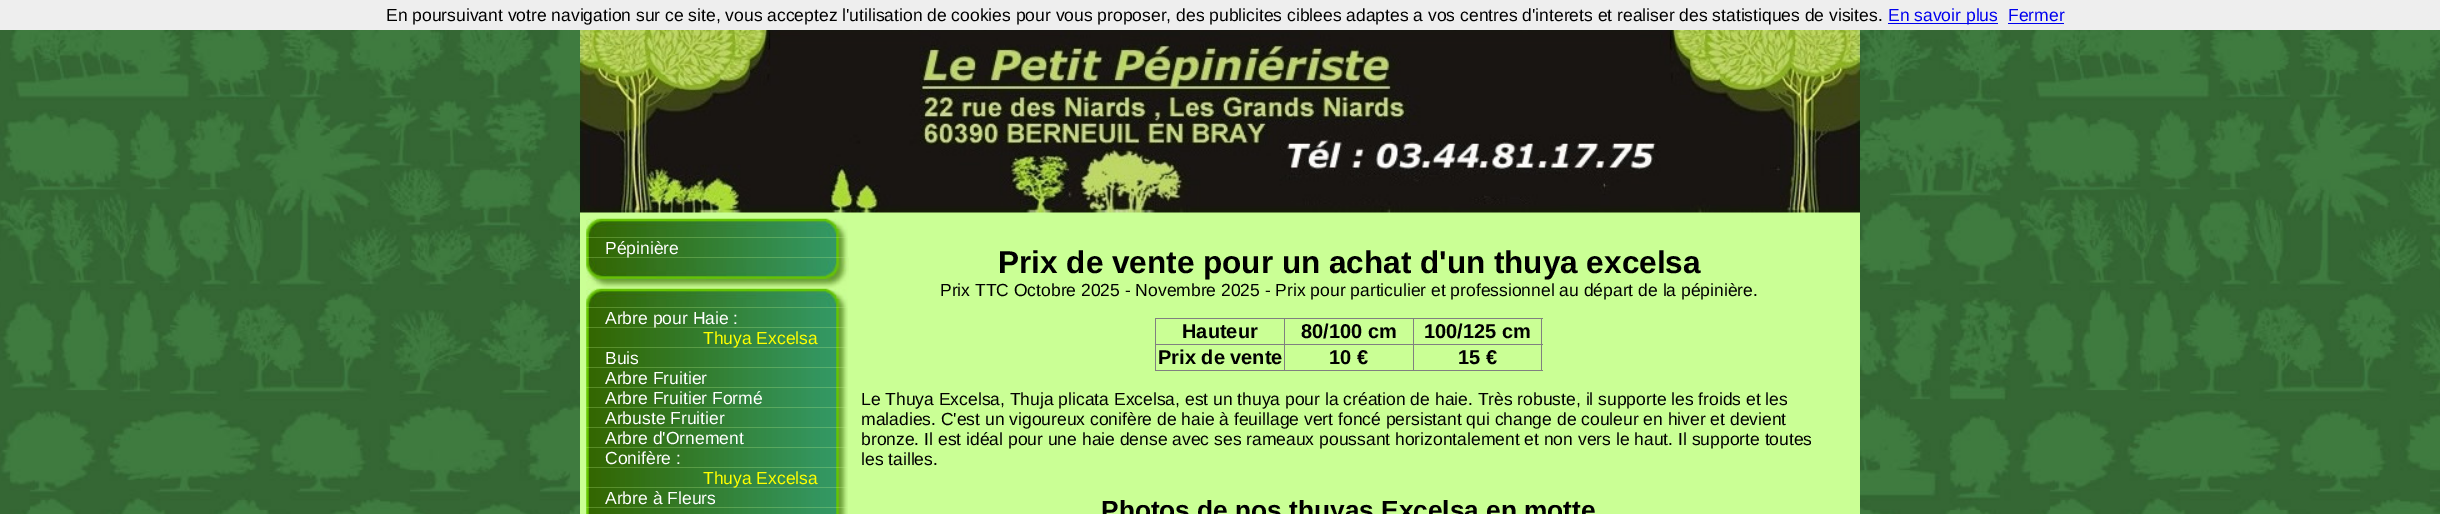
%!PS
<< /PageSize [2440 514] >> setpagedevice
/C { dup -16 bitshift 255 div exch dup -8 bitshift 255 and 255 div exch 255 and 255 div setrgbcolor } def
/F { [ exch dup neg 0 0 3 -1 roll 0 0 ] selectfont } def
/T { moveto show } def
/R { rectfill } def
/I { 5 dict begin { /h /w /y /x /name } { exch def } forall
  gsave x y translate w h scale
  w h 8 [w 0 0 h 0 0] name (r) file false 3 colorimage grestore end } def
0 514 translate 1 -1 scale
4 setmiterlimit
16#FFFFFF C
0 0 2440 514 R
(1.rgb) 0 30 2440 484 I
16#EEEEEE C
0 0 2440 30 R
/LiberationSans-Regular 17.5 F
16#000000 C
(En poursuivant votre navigation sur ce site, vous acceptez l'utilisation de cookies pour vous proposer, des publicites ciblees adaptes a vos centres d'interets et realiser des statistiques de visites.) 386 21 T
16#0000EE C
1888 23 110 1 R
(En savoir plus) 1888 21 T
(Fermer) 2008 21 T
2008 23 56 1 R
16#CAFF95 C
580 212 1280 302 R
(2.rgb) 580 30 1280 183 I
(3.rgb) 586 218 262 20 I
(4.rgb) 586 237 262 21 I
(5.rgb) 586 257 263 32 I
16#FFFFFF C
(Pépinière) 605 254 T
(6.rgb) 586 288 262 20 I
(7.rgb) 586 307 262 21 I
(8.rgb) 586 327 262 21 I
(Arbre pour Haie :) 605 324 T
(9.rgb) 586 347 262 21 I
16#FFFF00 C
(Thuya Excelsa) 703 344 T
16#FFFFFF C
(Buis) 605 364 T
(10.rgb) 586 367 262 21 I
(Arbre Fruitier) 605 384 T
(11.rgb) 586 387 262 21 I
(Arbre Fruitier Formé) 605 404 T
(12.rgb) 586 407 262 21 I
(Arbuste Fruitier) 605 424 T
(13.rgb) 586 427 262 21 I
(Arbre d'Ornement) 605 444 T
(14.rgb) 586 447 262 21 I
(Conifère :) 605 464 T
(15.rgb) 586 467 262 21 I
(16.rgb) 586 487 262 21 I
16#FFFF00 C
(Thuya Excelsa) 703 484 T
16#FFFFFF C
(Arbre à Fleurs) 605 504 T
(17.rgb) 586 507 262 7 I
/LiberationSans-Bold 31.5 F
16#000000 C
(Prix de vente pour un achat d'un thuya excelsa) 998 273 T
/LiberationSans-Regular 17.5 F
(Prix TTC Octobre 2025 - Novembre 2025 - Prix pour particulier et professionnel au départ de la pépinière.) 940 296 T
16#808080 C
1413 318 130 1 R
1413 344 130 1 R
1541 344 1 27 R
1413 370 130 1 R
1413 344 1 27 R
1284 344 130 1 R
1413 318 1 27 R
1284 318 130 1 R
1284 370 130 1 R
1284 344 1 27 R
1155 344 130 1 R
1284 318 1 27 R
1155 318 130 1 R
1155 370 130 1 R
1155 344 1 27 R
1155 318 1 27 R
/LiberationSans-Bold 20 F
16#000000 C
(Hauteur) 1182 338 T
(80/100 cm) 1301 338 T
16#808080 C
1541 318 1 27 R
16#000000 C
(100/125 cm) 1424 338 T
(Prix de vente) 1158 364 T
(10 €) 1329 364 T
(15 €) 1458 364 T
/LiberationSans-Regular 17.5 F
(Le Thuya Excelsa, Thuja plicata Excelsa, est un thuya pour la création de haie. Très robuste, il supporte les froids et les) 861 405 T
(maladies. C'est un vigoureux conifère de haie à feuillage vert foncé persistant qui change de couleur en hiver et devient) 861 425 T
(bronze. Il est idéal pour une haie dense avec ses rameaux poussant horizontalement et non vers le haut. Il supporte toutes) 861 445 T
(les tailles.) 861 465 T
/LiberationSans-Bold 26.25 F
(Photos de nos thuyas Excelsa en motte) 1101 519 T
showpage
